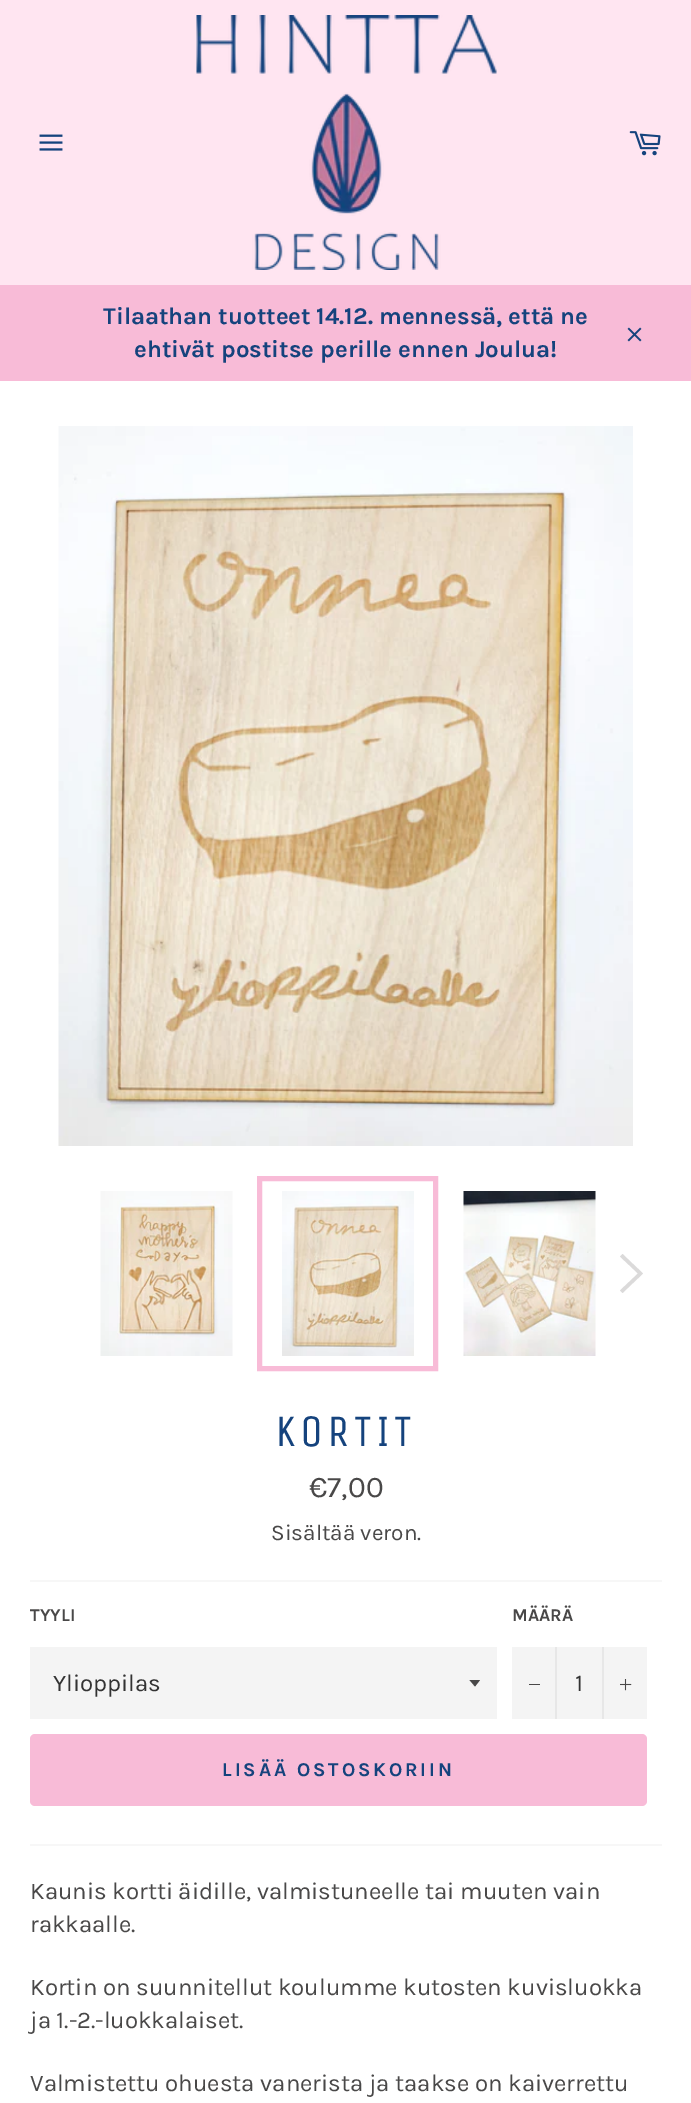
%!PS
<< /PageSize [691 2103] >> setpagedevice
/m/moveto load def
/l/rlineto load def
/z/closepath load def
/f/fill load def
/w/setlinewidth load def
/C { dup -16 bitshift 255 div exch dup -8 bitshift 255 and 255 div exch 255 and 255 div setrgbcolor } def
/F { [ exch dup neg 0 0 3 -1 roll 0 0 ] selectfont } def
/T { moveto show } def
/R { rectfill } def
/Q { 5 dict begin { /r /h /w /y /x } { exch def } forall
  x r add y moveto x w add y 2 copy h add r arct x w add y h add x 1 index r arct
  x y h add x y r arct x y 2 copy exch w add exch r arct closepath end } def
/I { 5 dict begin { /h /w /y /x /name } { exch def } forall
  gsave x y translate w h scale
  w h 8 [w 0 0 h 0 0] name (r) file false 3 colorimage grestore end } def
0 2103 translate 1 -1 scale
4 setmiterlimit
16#FFE5F1 C
0 0 691 2103 R
(1.rgb) 39 134 24 17 I
(2.rgb) 196 15 301 255 I
(3.rgb) 629 131 32 25 I
16#F8BBD7 C
0 285 691 96 R
/Karla-Bold 24 F
16#15437D C
(Tilaathan tuotteet 14.12. mennessä, että ne) 103 324 T
(ehtivät postitse perille ennen Joulua!) 134 357 T
(4.rgb) 627 327 15 15 I
16#FFFFFF C
0 381 691 1722 R
(5.rgb) 58 426 575 720 I
(6.rgb) 100 1191 133 165 I
(7.rgb) 282 1191 132 165 I
16#F8BBD7 C
5 w
259.5 1178.5 176 190 rectstroke
(8.rgb) 463 1191 133 165 I
16#DBDADA C
620 1256.5 m 2.5 -2.5 l 20.5 19.5 l -20.5 19.5 l -2.5 -2.5 l 18 -17 l z f
/UnicaOne-Regular 45 F
16#15437D C
275 1446 m 4.5 0 (KORTIT) ashow
/Karla-Regular 30 F
16#494848 C
(€7,00) 309 1497 T
/Karla-Regular 22.5 F
(Sisältää veron.) 271 1540 T
16#F7F7F7 C
30 1580 632 2 R
/Karla-Bold 18 F
16#494848 C
(TYYLI) 30 1621 T
16#F4F4F4 C
30 1647 467 72 R
16#494848 C
469.5 1680 m 5.5 6.5 l 5 -6.5 l z f
/Karla-Regular 24 F
16#333333 C
(Ylioppilas) 53 1691 T
/Karla-Bold 18 F
16#494848 C
(MÄÄRÄ) 512 1621 T
16#F4F4F4 C
512 1647 135 72 R
16#E7E7E7 C
555 1647 2 72 R
16#494848 C
529 1684 11 1 R
/Karla-Regular 24 F
16#333333 C
(1) 575 1691 T
16#E7E7E7 C
602 1647 2 72 R
(9.rgb) 620 1679 12 12 I
16#F8BBD7 C
30 1734 617 72 5 Q f
/Karla-Bold 19.5 F
16#15437D C
222 1776 m 2.9 0 (LISÄÄ OSTOSKORIIN) ashow
16#F7F7F7 C
30 1844 632 2 R
/Karla-Regular 24 F
16#494848 C
(Kaunis kortti äidille, valmistuneelle tai muuten vain) 30 1899 T
(rakkaalle.) 30 1932 T
(Kortin on suunnitellut koulumme kutosten kuvisluokka) 30 1995 T
(ja 1.-2.-luokkalaiset.) 30 2028 T
(Valmistettu ohuesta vanerista ja taakse on kaiverrettu) 30 2091 T
showpage
